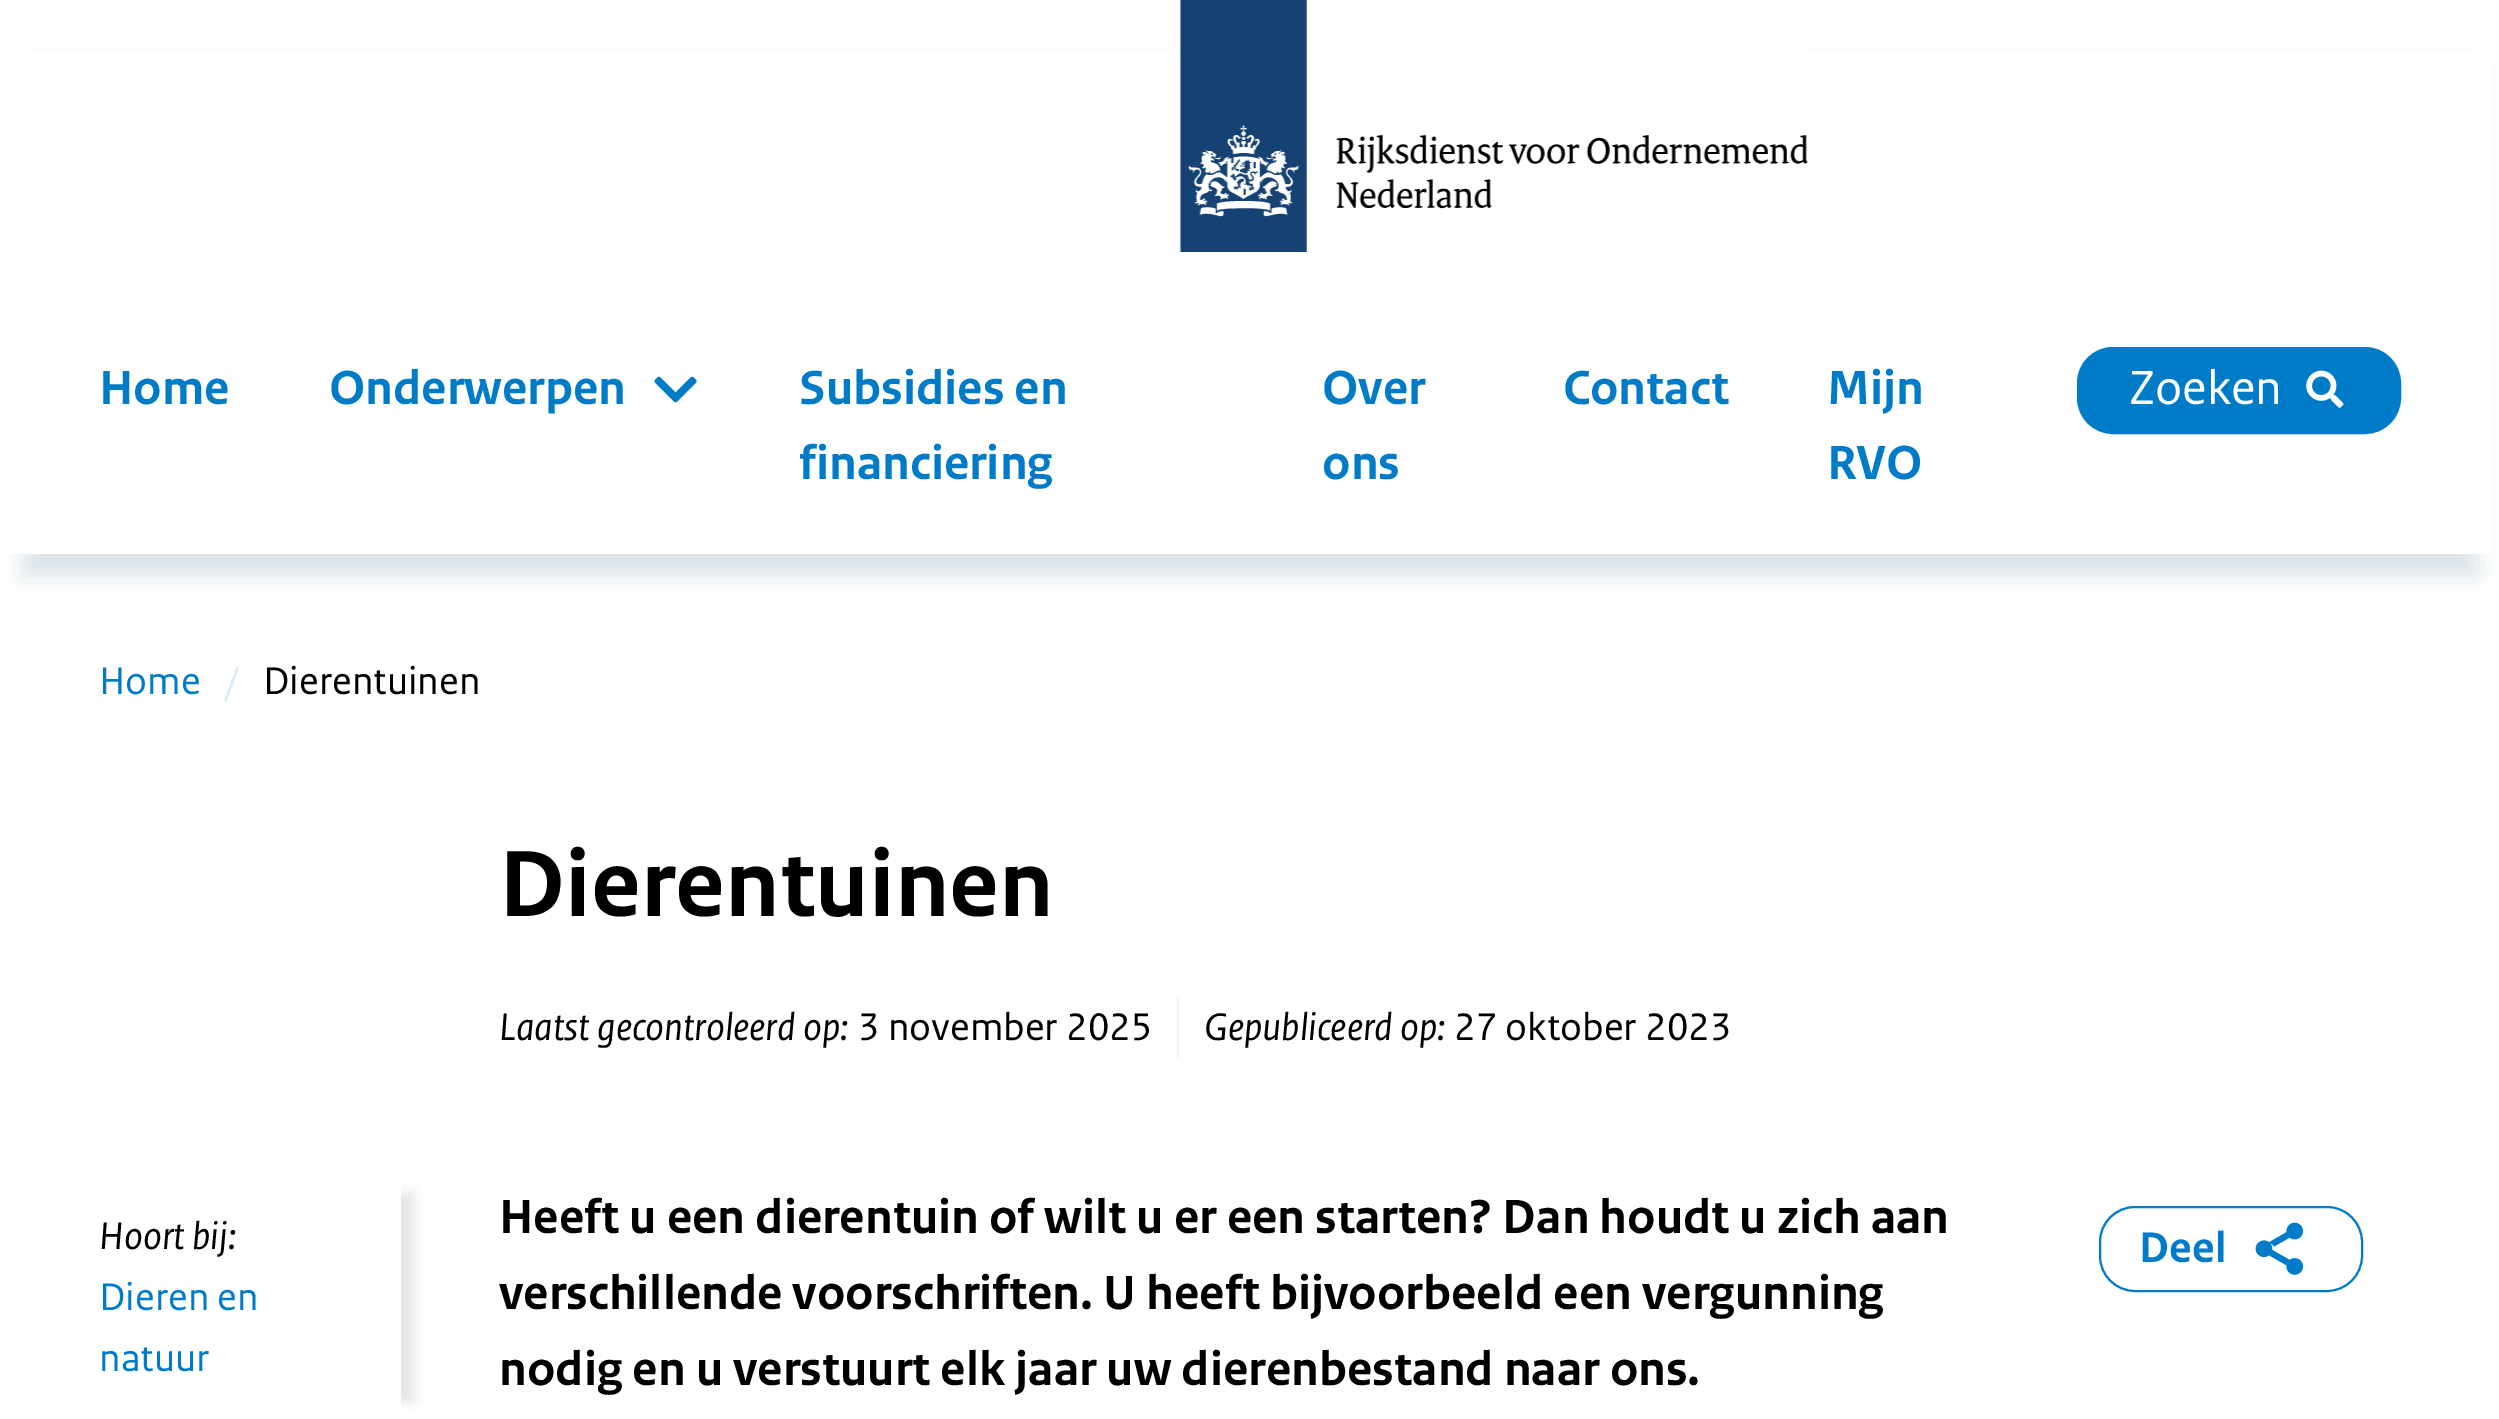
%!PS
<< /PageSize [2499 1419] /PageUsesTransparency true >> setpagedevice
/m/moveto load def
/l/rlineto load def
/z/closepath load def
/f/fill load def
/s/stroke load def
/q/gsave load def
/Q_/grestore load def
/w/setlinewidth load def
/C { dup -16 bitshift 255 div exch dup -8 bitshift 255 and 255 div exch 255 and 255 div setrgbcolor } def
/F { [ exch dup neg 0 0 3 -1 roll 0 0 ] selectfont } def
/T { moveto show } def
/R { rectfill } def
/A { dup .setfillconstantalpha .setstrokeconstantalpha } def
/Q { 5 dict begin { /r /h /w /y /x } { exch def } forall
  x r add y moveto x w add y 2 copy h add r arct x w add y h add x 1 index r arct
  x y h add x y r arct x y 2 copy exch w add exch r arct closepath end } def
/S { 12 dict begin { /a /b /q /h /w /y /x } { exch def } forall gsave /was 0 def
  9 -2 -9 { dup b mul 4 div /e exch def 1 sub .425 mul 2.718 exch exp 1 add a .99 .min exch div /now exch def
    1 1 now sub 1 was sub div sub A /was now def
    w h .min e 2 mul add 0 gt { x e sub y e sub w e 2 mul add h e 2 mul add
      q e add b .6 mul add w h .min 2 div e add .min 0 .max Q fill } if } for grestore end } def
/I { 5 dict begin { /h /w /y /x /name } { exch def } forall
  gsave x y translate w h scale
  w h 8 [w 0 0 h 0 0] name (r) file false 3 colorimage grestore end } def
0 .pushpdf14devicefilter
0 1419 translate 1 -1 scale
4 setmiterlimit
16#FFFFFF C
0 0 2499 1419 R
16#154273 C
23 68 2454 508 0 11 .15 S
16#FFFFFF C
7 52 2486 502 R
(1.rgb) 1179 0 629 252 I
/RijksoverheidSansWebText-Bold 50.4 F
16#007BC7 C
(Home) 99 404 T
(Onderwerpen) 329 404 T
(2.rgb) 654 376 43 27 I
(Subsidies en) 799 404 T
(financiering) 799 479 T
(Over) 1322 404 T
(ons) 1322 479 T
(Contact) 1563 404 T
(Mijn) 1827 404 T
(RVO) 1827 479 T
2078 348 322 85 35 Q q f Q_
2 w
s
/RijksoverheidSansWebText-Regular 50.4 F
16#FFFFFF C
(Zoeken) 2129 404 T
(3.rgb) 2306 370 38 38 I
/RijksoverheidSansWebText-Regular 40.5 F
16#007BC7 C
(Home) 99 694 T
16#D9EBF7 C
(/) 225 694 T
16#000000 C
(Dierentuinen) 263 694 T
/RijksoverheidSansWebText-Bold 99 F
(Dierentuinen) 499 916 T
/RijksoverheidSansWebText-Italic 40.5 F
(Laatst gecontroleerd op:) 499 1040 T
/RijksoverheidSansWebText-Regular 40.5 F
(3 november 2025) 858 1040 T
16#ECF5FB C
1177 997 2 61 R
/RijksoverheidSansWebText-Italic 40.5 F
16#000000 C
(Gepubliceerd op:) 1204 1040 T
/RijksoverheidSansWebText-Regular 40.5 F
(27 oktober 2023) 1454 1040 T
q
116 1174 m 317 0 l 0 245 l -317 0 l z 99 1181 m 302 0 l 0 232 l -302 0 l z eoclip newpath
135 1193 279 209 0 6 .1 S
Q_
/RijksoverheidSansWebText-Italic 40.5 F
(Hoort bij:) 99 1249 T
/RijksoverheidSansWebText-Regular 40.5 F
16#007BC7 C
(Dieren en) 99 1310 T
(natuur) 99 1371 T
/RijksoverheidSansWebText-Bold 50.4 F
16#000000 C
(Heeft u een dierentuin of wilt u er een starten? Dan houdt u zich aan) 499 1233 T
(verschillende voorschriften. U heeft bijvoorbeeld een vergunning) 499 1309 T
(nodig en u verstuurt elk jaar uw dierenbestand naar ons.) 499 1385 T
16#007BC7 C
2100 1207 262 84 35 Q s
/RijksoverheidSansWebText-Bold 45 F
(Deel) 2139 1262 T
(4.rgb) 2255 1222 49 53 I
.poppdf14devicefilter showpage
